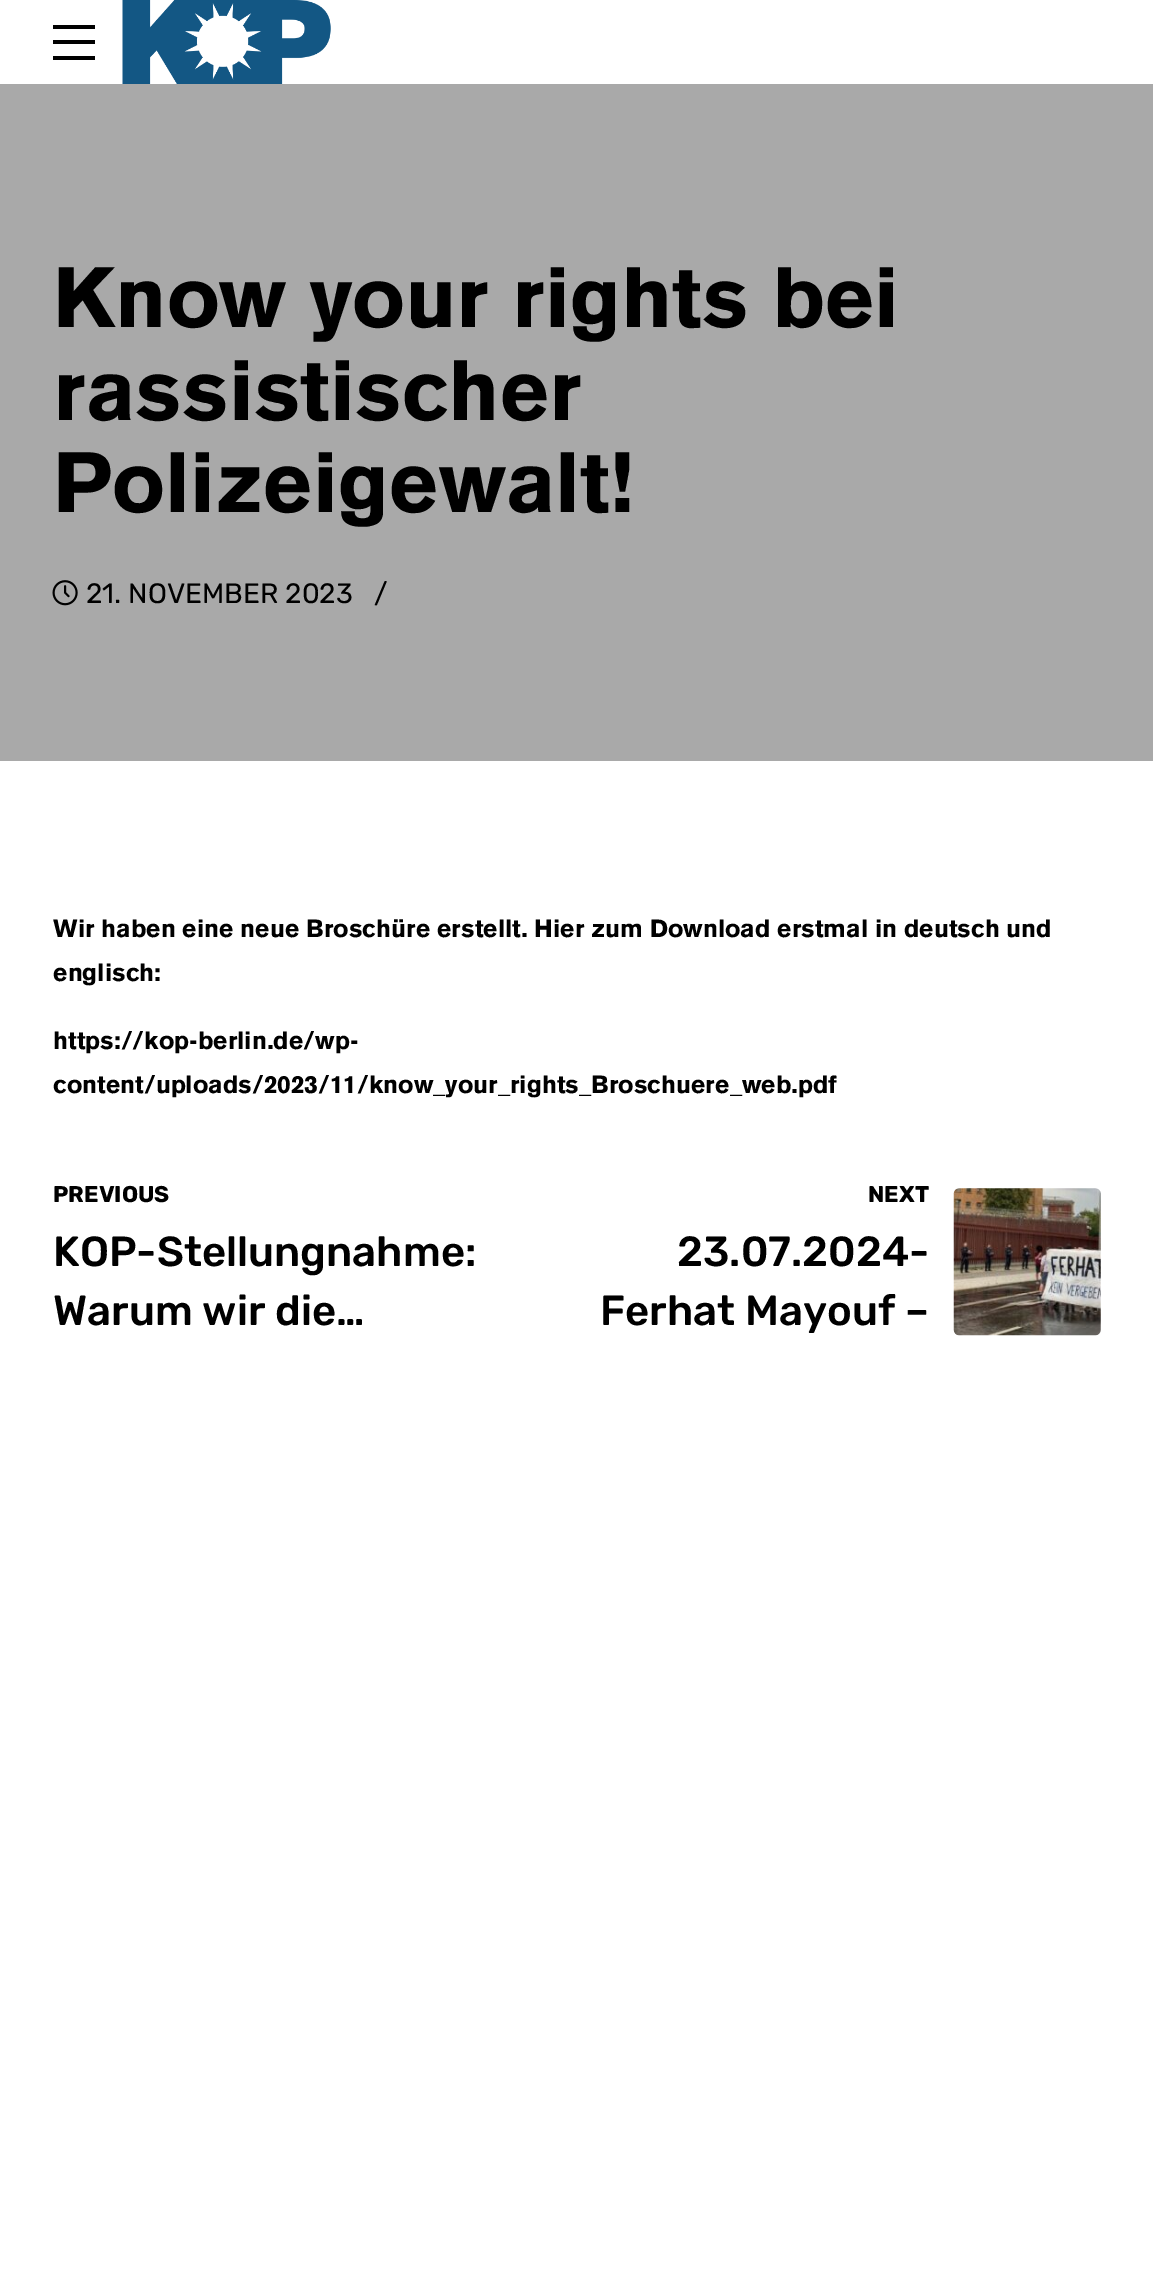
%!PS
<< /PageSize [1153 2280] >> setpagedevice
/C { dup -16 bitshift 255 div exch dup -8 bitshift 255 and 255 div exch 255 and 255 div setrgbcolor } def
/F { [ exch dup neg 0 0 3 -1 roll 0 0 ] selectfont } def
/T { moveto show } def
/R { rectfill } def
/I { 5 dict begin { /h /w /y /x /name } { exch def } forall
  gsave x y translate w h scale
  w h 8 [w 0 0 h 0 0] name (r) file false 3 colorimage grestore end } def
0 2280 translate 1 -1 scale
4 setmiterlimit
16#FFFFFF C
0 0 1153 2280 R
16#000000 C
53 25 42 4 R
53 40 42 4 R
53 56 42 4 R
(1.rgb) 122 0 209 84 I
16#A9A9A9 C
0 84 1153 677 R
/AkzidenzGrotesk-Black 84 F
16#000000 C
(Know your rights bei) 53 327 T
(rassistischer) 53 420 T
(Polizeigewalt!) 53 512 T
(2.rgb) 52 580 26 26 I
/Rubik-Regular 28 F
(21. NOVEMBER 2023) 86 603 T
(/) 374 603 T
/AkzidenzGrotesk-Black 24.5 F
(Wir haben eine neue Broschüre erstellt. Hier zum Download erstmal in deutsch und) 53 937 T
(englisch:) 53 981 T
(https://kop-berlin.de/wp-) 53 1049 T
(content/uploads/2023/11/know_your_rights_Broschuere_web.pdf) 53 1093 T
/Rubik-Bold 22.75 F
(PREVIOUS) 53 1202 T
/Rubik-Medium 42 F
(KOP-Stellungnahme:) 53 1266 T
(Warum wir die…) 53 1325 T
/Rubik-Bold 22.75 F
(NEXT) 868 1202 T
/Rubik-Medium 42 F
(23.07.2024-) 677 1266 T
(Ferhat Mayouf –) 600 1325 T
(3.rgb) 953 1188 148 148 I
showpage
